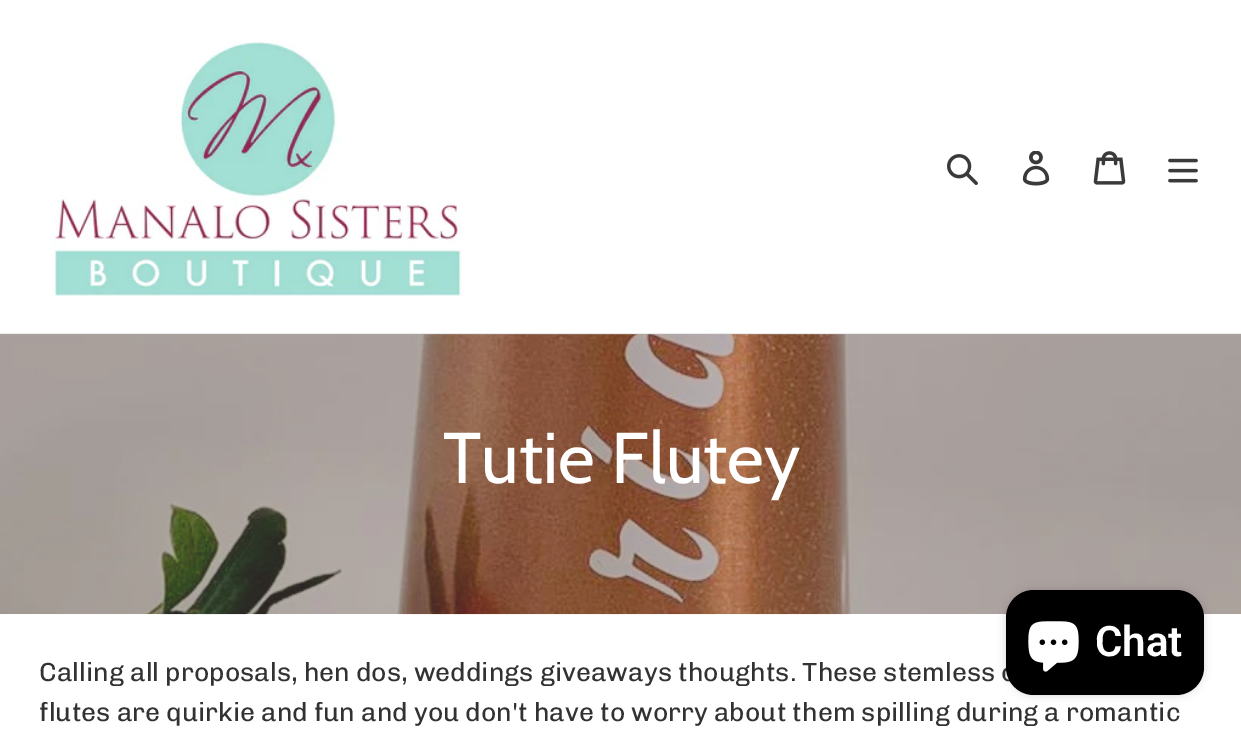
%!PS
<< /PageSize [1241 730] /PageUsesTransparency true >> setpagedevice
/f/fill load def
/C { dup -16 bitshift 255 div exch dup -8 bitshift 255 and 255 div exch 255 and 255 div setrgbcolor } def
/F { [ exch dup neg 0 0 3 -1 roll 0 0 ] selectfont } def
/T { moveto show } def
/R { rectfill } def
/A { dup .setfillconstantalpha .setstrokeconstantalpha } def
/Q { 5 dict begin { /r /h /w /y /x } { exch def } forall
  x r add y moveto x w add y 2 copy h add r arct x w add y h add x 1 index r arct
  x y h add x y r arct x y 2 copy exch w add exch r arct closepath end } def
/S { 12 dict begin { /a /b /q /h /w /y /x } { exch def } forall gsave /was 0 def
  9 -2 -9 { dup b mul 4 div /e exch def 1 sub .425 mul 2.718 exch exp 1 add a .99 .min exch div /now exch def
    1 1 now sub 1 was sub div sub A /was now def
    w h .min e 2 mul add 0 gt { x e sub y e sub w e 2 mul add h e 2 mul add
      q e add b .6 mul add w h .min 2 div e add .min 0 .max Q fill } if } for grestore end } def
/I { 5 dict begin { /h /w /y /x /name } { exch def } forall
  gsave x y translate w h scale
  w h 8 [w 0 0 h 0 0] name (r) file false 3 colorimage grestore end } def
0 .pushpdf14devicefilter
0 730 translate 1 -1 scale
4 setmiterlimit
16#FFFFFF C
0 0 1241 730 R
16#EBEBEB C
0 333 1241 2 R
(1.rgb) 51 41 412 256 I
(2.rgb) 947 154 31 31 I
(3.rgb) 1022 151 28 35 I
(4.rgb) 1093 151 33 34 I
(5.rgb) 1168 158 30 25 I
(6.rgb) 0 334 1241 281 I
/Cabin-Regular 71.75 F
16#FFFFFF C
(Tutie Flutey) 443 483 T
/Chivo-Regular 26.25 F
16#333232 C
(Calling all proposals, hen dos, weddings giveaways thoughts. These stemless c) 39 681 T
(flutes are quirkie and fun and you don't have to worry about them spilling during a romantic) 39 721 T
16#000000 C
1006 590 198 105 28 4.5 .15 S
1006 590 198 105 28 Q f
(7.rgb) 1028 621 51 51 I
/Roboto-SemiBold 42 F
16#FFFFFF C
(Chat) 1095 656 T
.poppdf14devicefilter showpage
